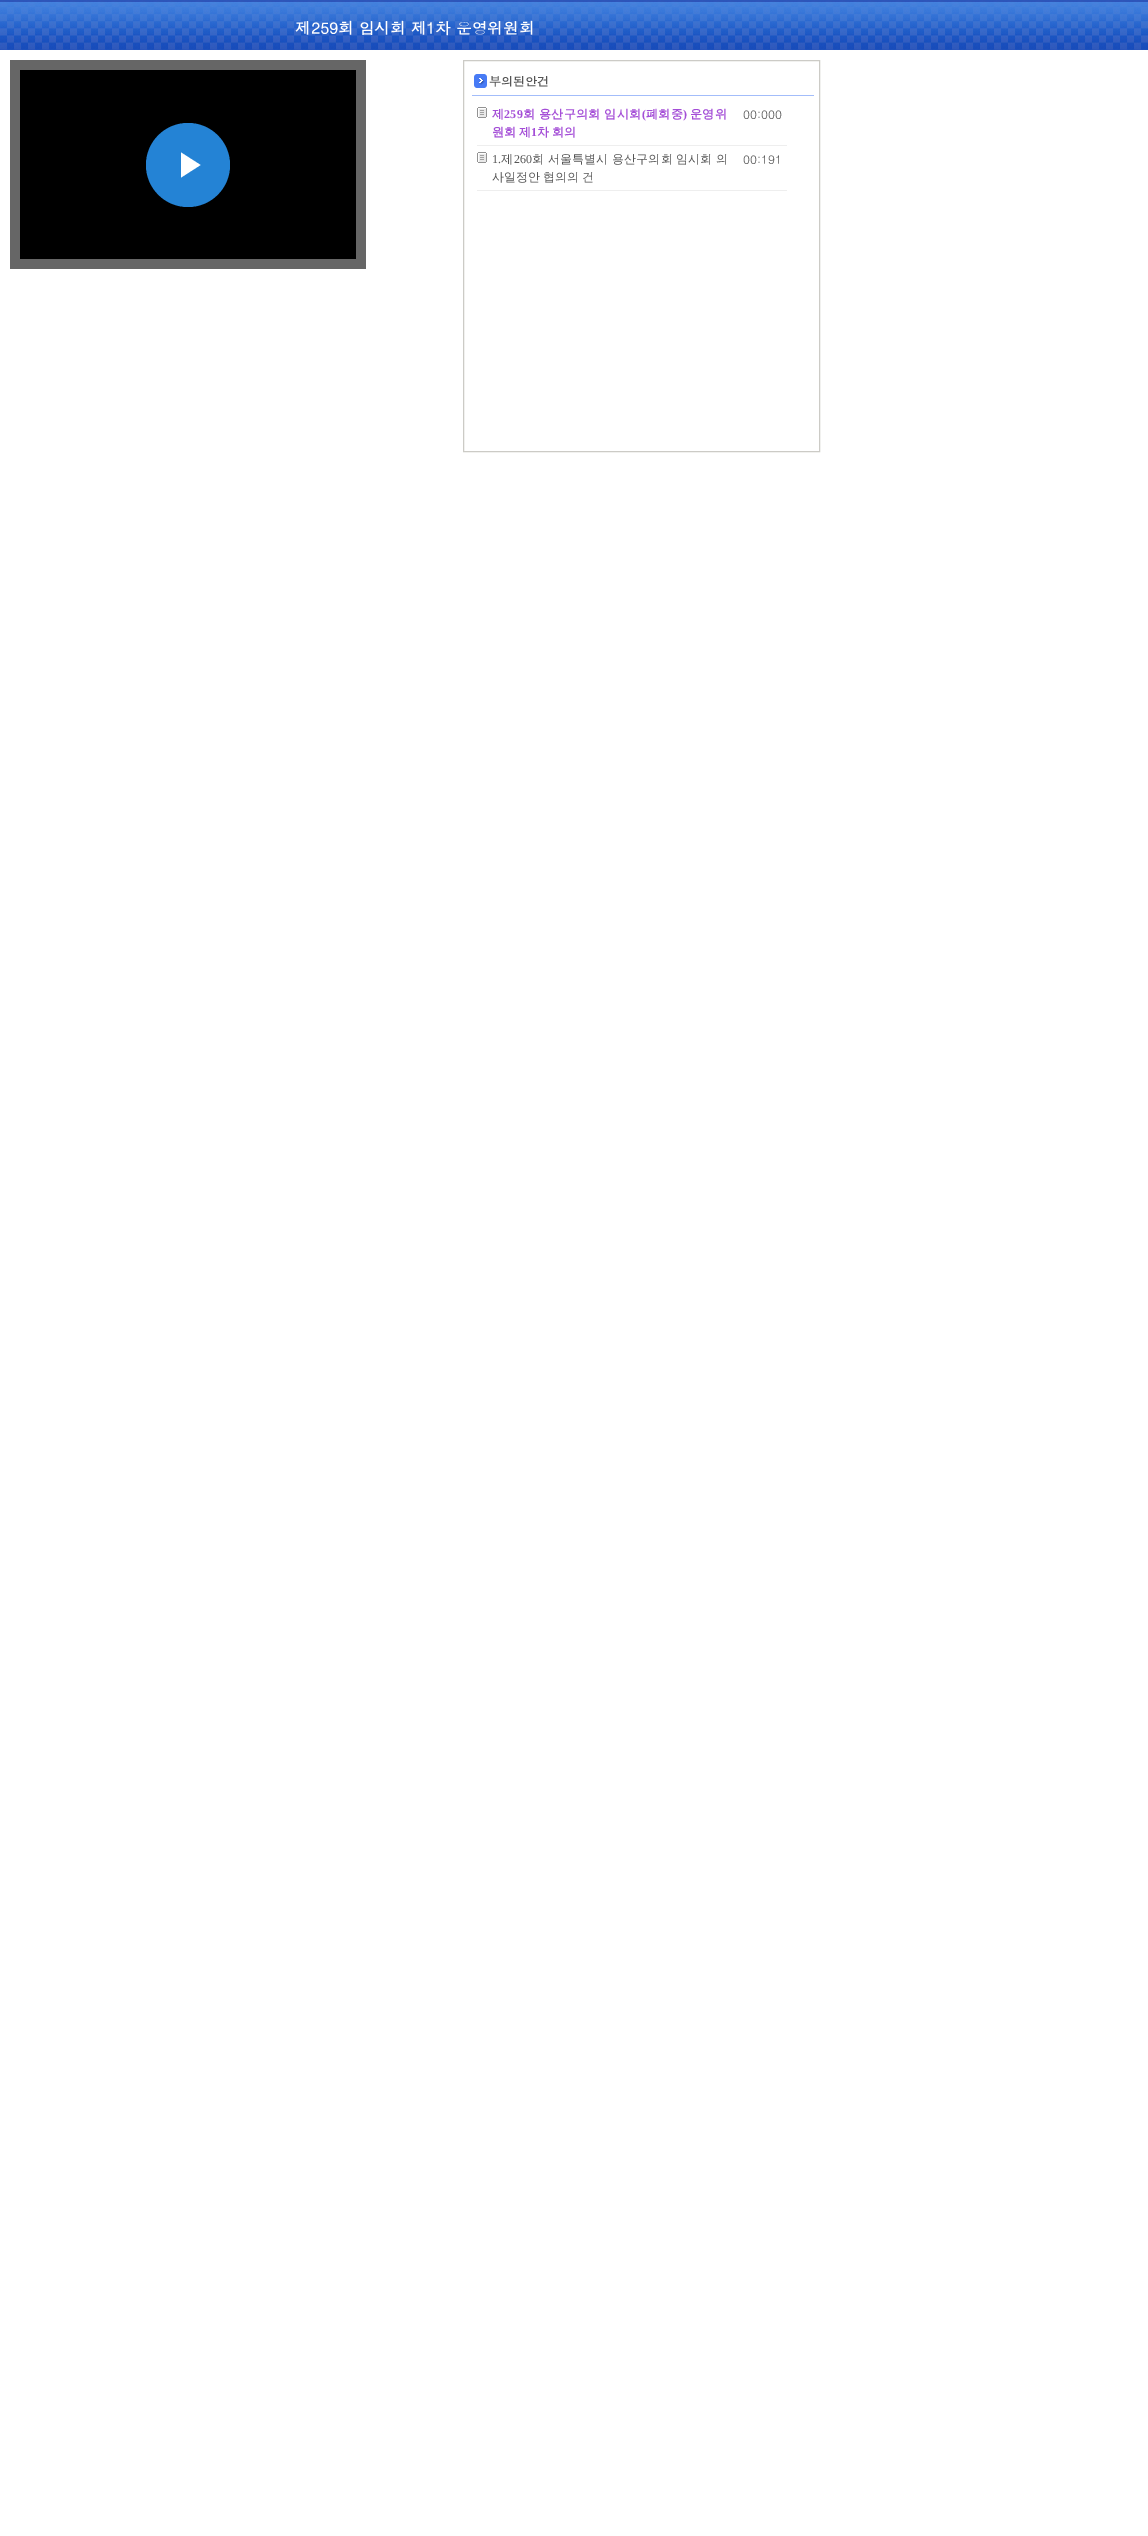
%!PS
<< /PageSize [1148 2536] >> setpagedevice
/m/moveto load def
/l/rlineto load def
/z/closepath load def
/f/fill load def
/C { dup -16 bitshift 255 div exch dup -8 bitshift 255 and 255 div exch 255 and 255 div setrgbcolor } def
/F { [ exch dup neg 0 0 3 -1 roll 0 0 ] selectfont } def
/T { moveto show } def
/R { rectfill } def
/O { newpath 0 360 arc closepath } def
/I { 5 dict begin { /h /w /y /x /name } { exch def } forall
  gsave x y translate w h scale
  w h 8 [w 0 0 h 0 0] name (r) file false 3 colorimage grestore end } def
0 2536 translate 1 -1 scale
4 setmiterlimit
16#FFFFFF C
0 0 1148 2536 R
(1.rgb) 0 0 1148 50 I
/Dotum-Bold 15.6 F
(제259회 임시회 제1차 운영위원회) 295 34 T
16#666666 C
10 60 356 209 R
16#000000 C
20 70 336 189 R
16#2483D5 C
188 165 42 O f
16#FFFFFF C
181 152.5 m 0 25 l 19.5 -12.5 l z f
16#CCCBC6 C
463.5 60.5 356 391 rectstroke
(2.rgb) 474 74 13 14 I
/Dotum-Bold 12 F
16#555555 C
(부의된안건) 489 86 T
16#A3BDFA C
472 95 342 1 R
16#EEEEEE C
477 145 310 1 R
(3.rgb) 477 107 10 11 I
/WenQuanYiZenHei-Bold 12 F
16#A44ED7 C
492 118 m .4 0 (제) ashow
/LiberationSerif-Bold 12 F
504 118 m .4 0 (259) ashow
/WenQuanYiZenHei-Bold 12 F
523 118 m -.5 0 32 .4 0 (회 용산구의회 임시회) awidthshow
/LiberationSerif-Bold 12 F
642 118 m .4 0 (\() ashow
/WenQuanYiZenHei-Bold 12 F
646 118 m .4 0 (폐회중) ashow
/LiberationSerif-Bold 12 F
683 118 m .4 0 (\)) ashow
/WenQuanYiZenHei-Bold 12 F
690 118 m .4 0 (운영위) ashow
492 136 m -.5 0 32 (원회 제) widthshow
/LiberationSerif-Bold 12 F
(1) 531 136 T
/WenQuanYiZenHei-Bold 12 F
537 136 m -.5 0 32 (차 회의) widthshow
/Dotum-Regular 12 F
16#555555 C
(00:000) 743 119 T
16#EEEEEE C
477 190 310 1 R
(3.rgb) 477 152 10 11 I
/LiberationSerif-Regular 12 F
16#555555 C
492 163 m .2 0 (1.) ashow
/WenQuanYiZenHei-Medium 12 F
501 163 m .2 0 (제) ashow
/LiberationSerif-Regular 12 F
514 163 m .2 0 (260) ashow
/WenQuanYiZenHei-Medium 12 F
532 163 m -.5 0 32 .2 0 (회 서울특별시 용산구의회 임시회 의) awidthshow
492 181 m -.5 0 32 (사일정안 협의의 건) widthshow
/Dotum-Regular 12 F
(00:191) 743 164 T
showpage
